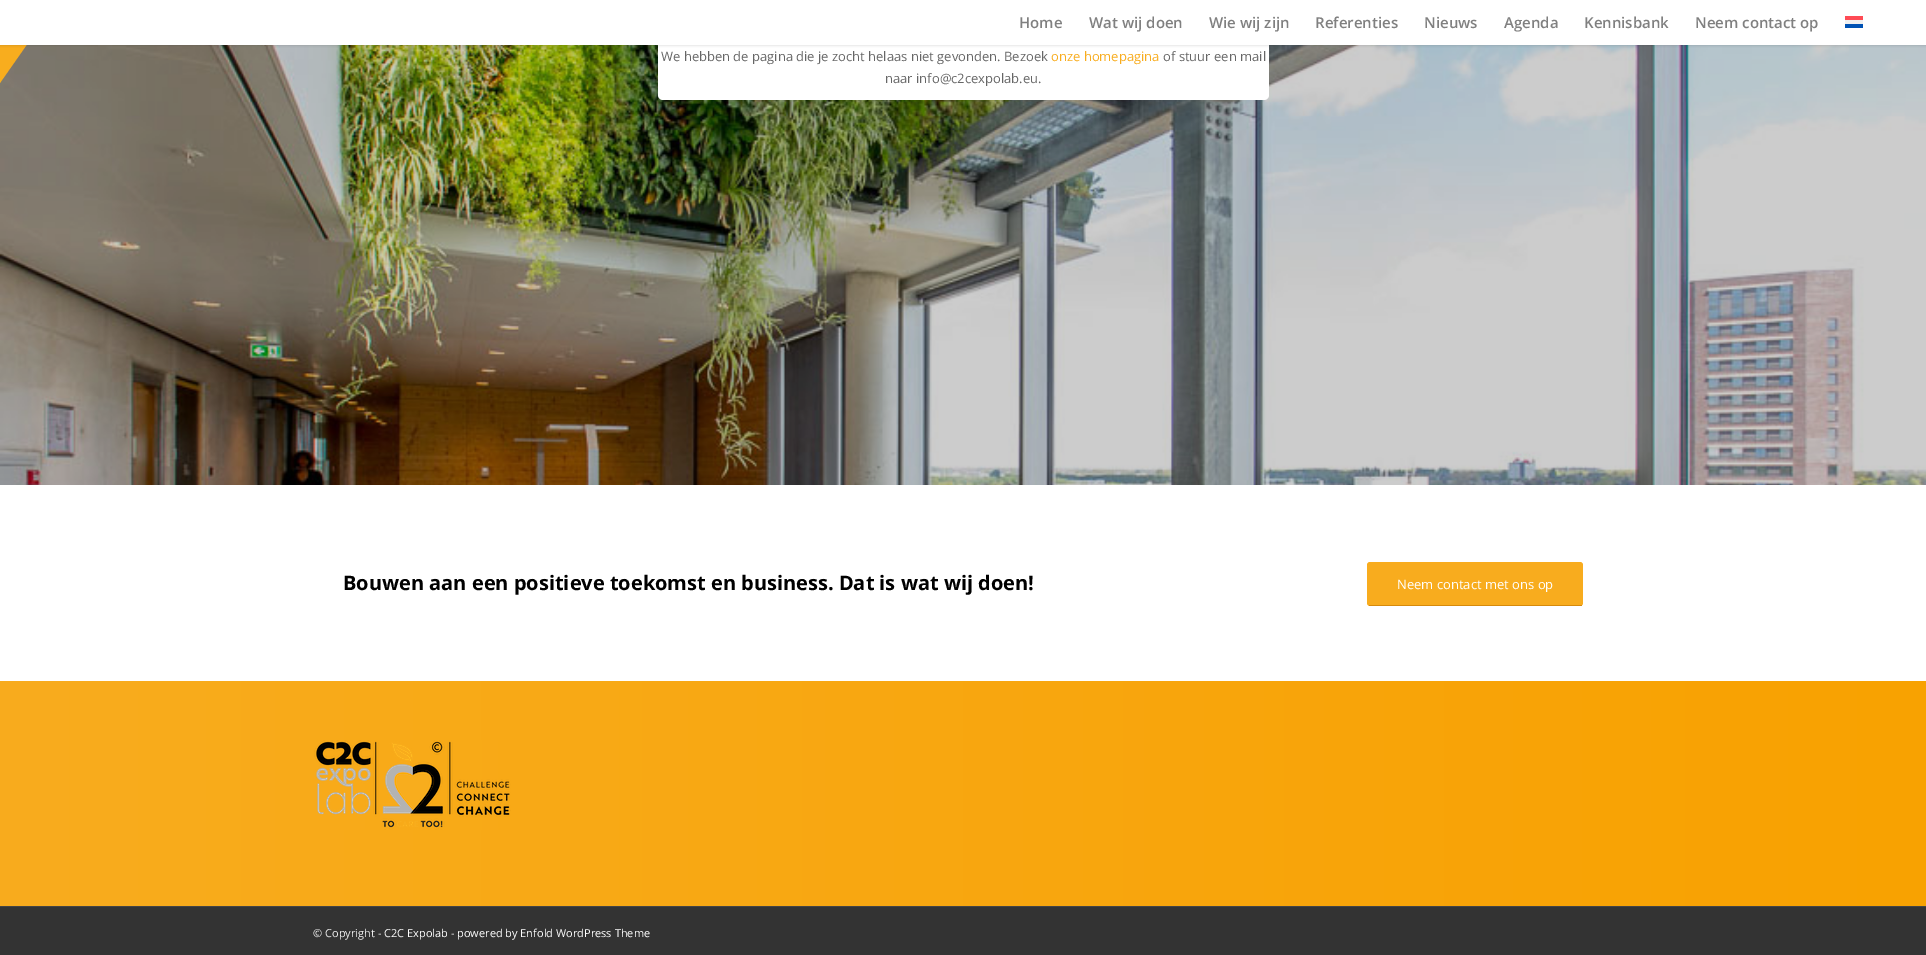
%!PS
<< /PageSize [1926 955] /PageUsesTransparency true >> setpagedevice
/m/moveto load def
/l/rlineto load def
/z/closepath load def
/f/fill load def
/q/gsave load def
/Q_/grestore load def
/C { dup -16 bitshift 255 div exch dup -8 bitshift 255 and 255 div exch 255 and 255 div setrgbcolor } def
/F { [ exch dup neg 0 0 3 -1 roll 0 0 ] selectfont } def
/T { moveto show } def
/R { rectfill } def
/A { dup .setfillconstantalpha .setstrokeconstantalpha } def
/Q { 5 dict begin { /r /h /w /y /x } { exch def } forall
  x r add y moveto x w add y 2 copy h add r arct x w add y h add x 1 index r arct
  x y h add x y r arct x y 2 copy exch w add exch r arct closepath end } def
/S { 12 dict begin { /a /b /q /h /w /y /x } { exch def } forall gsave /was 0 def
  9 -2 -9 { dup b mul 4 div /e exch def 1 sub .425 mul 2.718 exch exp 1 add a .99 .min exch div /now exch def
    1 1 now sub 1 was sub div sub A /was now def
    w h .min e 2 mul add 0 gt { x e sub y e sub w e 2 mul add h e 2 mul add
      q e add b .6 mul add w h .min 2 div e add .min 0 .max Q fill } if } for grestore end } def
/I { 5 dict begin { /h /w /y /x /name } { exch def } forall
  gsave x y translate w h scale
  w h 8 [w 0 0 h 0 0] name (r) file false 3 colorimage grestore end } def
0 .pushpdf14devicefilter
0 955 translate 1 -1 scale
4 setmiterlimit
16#FFFFFF C
0 0 1926 955 R
(1.rgb) 0 45 1926 440 I
16#F8AD1E C
-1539 -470 m 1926 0 l -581 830 l -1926 0 l z f
16#FFFFFF C
658 3 611 97 5 Q f
16#000000 C
-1 -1 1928 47 0 1 .1 S
16#FFFFFF C
0 0 1926 45 R
/OpenSans-SemiBold 15 F
16#808080 C
(Home) 1019 28 T
(Wat wij doen) 1089 28 T
(Wie wij zijn) 1209 28 T
(Referenties) 1315 28 T
(Nieuws) 1424 28 T
(Agenda) 1504 28 T
(Kennisbank) 1584 28 T
(Neem contact op) 1695 28 T
16#FF4B55 C
1845 16 18 4 R
16#F0F0F0 C
1845 20 18 4 R
16#0052B4 C
1845 24 18 4 R
/OpenSans-Regular 13 F
16#666666 C
(We hebben de pagina die je zocht helaas niet gevonden. Bezoek) 661 61 T
16#F8AC1E C
(onze homepagina) 1051 61 T
16#666666 C
(of stuur een mail) 1163 61 T
(naar info@c2cexpolab.eu.) 885 83 T
/OpenSans-Bold 20 F
16#000000 C
(Bouwen aan een positieve toekomst en business. Dat is wat wij doen!) 343 590 T
16#F8AC1E C
1367 562 216 44 3 Q f
16#D68A0C C
1369 605 213 1 R
/OpenSans-Regular 13 F
16#FFFFFF C
(Neem contact met ons op) 1397 589 T
q 0 681 m 1926 0 l 0 225 l -1926 0 l z clip newpath
<< /ShadingType 2 /ColorSpace /DeviceRGB /Coords [0 794 1926 794] /Extend [true true] /Function << /FunctionType 2 /Domain [0 1] /C0 [.973 .675 .118] /C1 [.973 .635 .004] /N 1 >> >> shfill Q_
(2.rgb) 314 740 197 90 I
16#333333 C
0 907 1926 48 R
16#444444 C
0 906 1926 1 R
/OpenSans-Regular 11 F
16#EEEEEE C
(© Copyright -) 313 937 T
16#FFFFFF C
(C2C Expolab) 384 937 T
16#EEEEEE C
(-) 451 937 T
16#FFFFFF C
(powered by Enfold WordPress Theme) 457 937 T
.poppdf14devicefilter showpage
